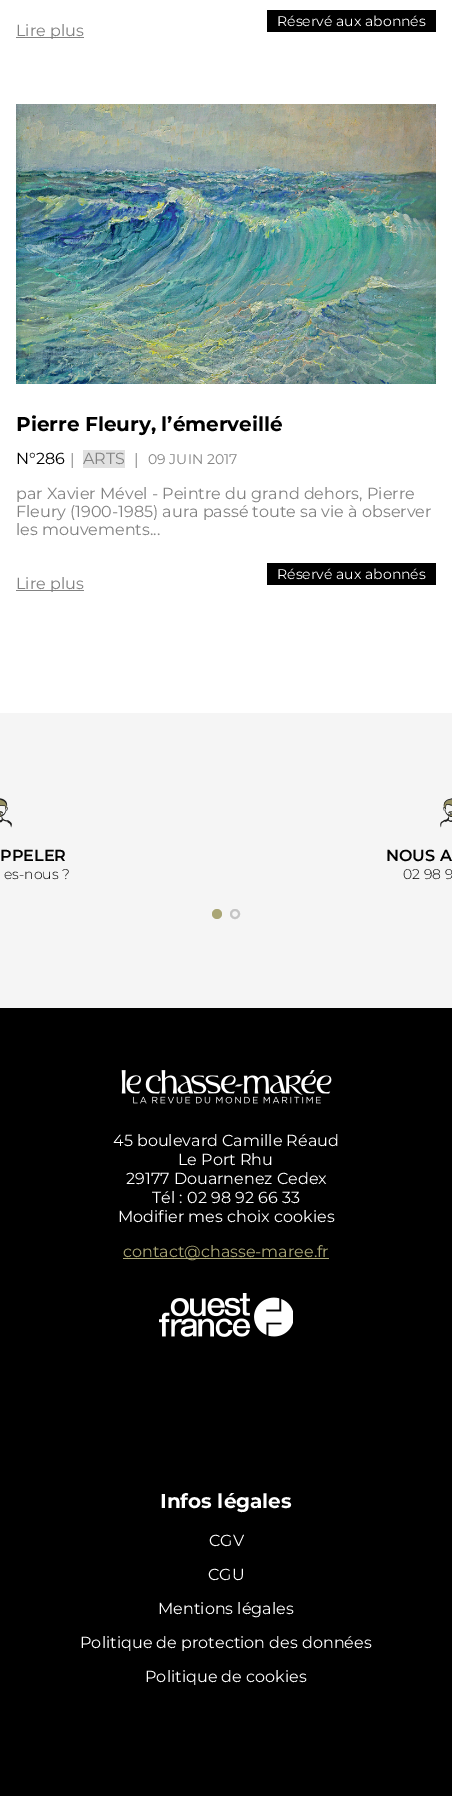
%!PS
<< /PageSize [452 1796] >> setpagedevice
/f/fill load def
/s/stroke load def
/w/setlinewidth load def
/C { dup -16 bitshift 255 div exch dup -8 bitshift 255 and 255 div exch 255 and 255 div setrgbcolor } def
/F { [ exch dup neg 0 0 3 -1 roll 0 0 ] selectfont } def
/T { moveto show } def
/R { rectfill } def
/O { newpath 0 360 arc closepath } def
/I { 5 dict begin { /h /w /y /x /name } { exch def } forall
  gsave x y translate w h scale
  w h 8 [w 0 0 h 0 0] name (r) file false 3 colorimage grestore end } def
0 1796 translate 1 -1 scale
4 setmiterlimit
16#FFFFFF C
0 0 452 1796 R
16#000000 C
267 10 169 22 R
/Montserrat-Regular 14 F
16#FFFFFF C
(Réservé aux abonnés) 277 26 T
16#828282 C
16 37 68 1 R
/Montserrat-Regular 16 F
(Lire plus) 16 36 T
(1.rgb) 16 104 420 280 I
/Montserrat-Bold 20 F
16#000000 C
(Pierre Fleury, l’émerveillé) 16 431 T
/Montserrat-Regular 16 F
(N°286) 16 464 T
16#828282 C
(|) 70 465 T
16#E1E1E1 C
83 450 42 18 R
16#828282 C
(ARTS) 83 464 T
(|) 134 465 T
/Montserrat-Regular 14 F
(09 JUIN 2017) 148 464 T
/Montserrat-Regular 16 F
(par Xavier Mével - Peintre du grand dehors, Pierre) 16 499 T
(Fleury \(1900-1985\) aura passé toute sa vie à observer) 16 517 T
(les mouvements...) 16 535 T
16#000000 C
267 563 169 22 R
/Montserrat-Regular 14 F
16#FFFFFF C
(Réservé aux abonnés) 277 579 T
16#828282 C
16 590 68 1 R
/Montserrat-Regular 16 F
(Lire plus) 16 589 T
16#F5F5F5 C
0 713 452 295 R
(2.rgb) 0 798 12 30 I
/Montserrat-SemiBold 16 F
16#000000 C
(PPELER) 0 861 T
/Montserrat-Light 14 F
(es-nous ?) 4 879 T
(3.rgb) 440 798 12 30 I
/Montserrat-SemiBold 16 F
(NOUS A) 386 861 T
/Montserrat-Light 14 F
(02 98 9) 403 879 T
16#AAA676 C
217 914 5 O f
16#C4C4C4 C
2 w
235 914 4 O s
16#000000 C
0 1008 452 788 R
(4.rgb) 121 1070 211 34 I
/Montserrat-Regular 16 F
16#FFFFFF C
(45 boulevard Camille Réaud) 113 1146 T
(Le Port Rhu) 178 1165 T
(29177 Douarnenez Cedex) 126 1184 T
(Tél : 02 98 92 66 33) 152 1203 T
(Modifier mes choix cookies) 118 1222 T
16#AAA676 C
123 1258 206 1 R
(contact@chasse-maree.fr) 123 1257 T
(5.rgb) 159 1293 134 44 I
/Montserrat-Bold 20 F
16#FFFFFF C
(Infos légales) 160 1508 T
/Montserrat-Regular 16 F
(CGV) 209 1546 T
(CGU) 208 1580 T
(Mentions légales) 158 1614 T
(Politique de protection des données) 80 1648 T
(Politique de cookies) 145 1682 T
showpage
